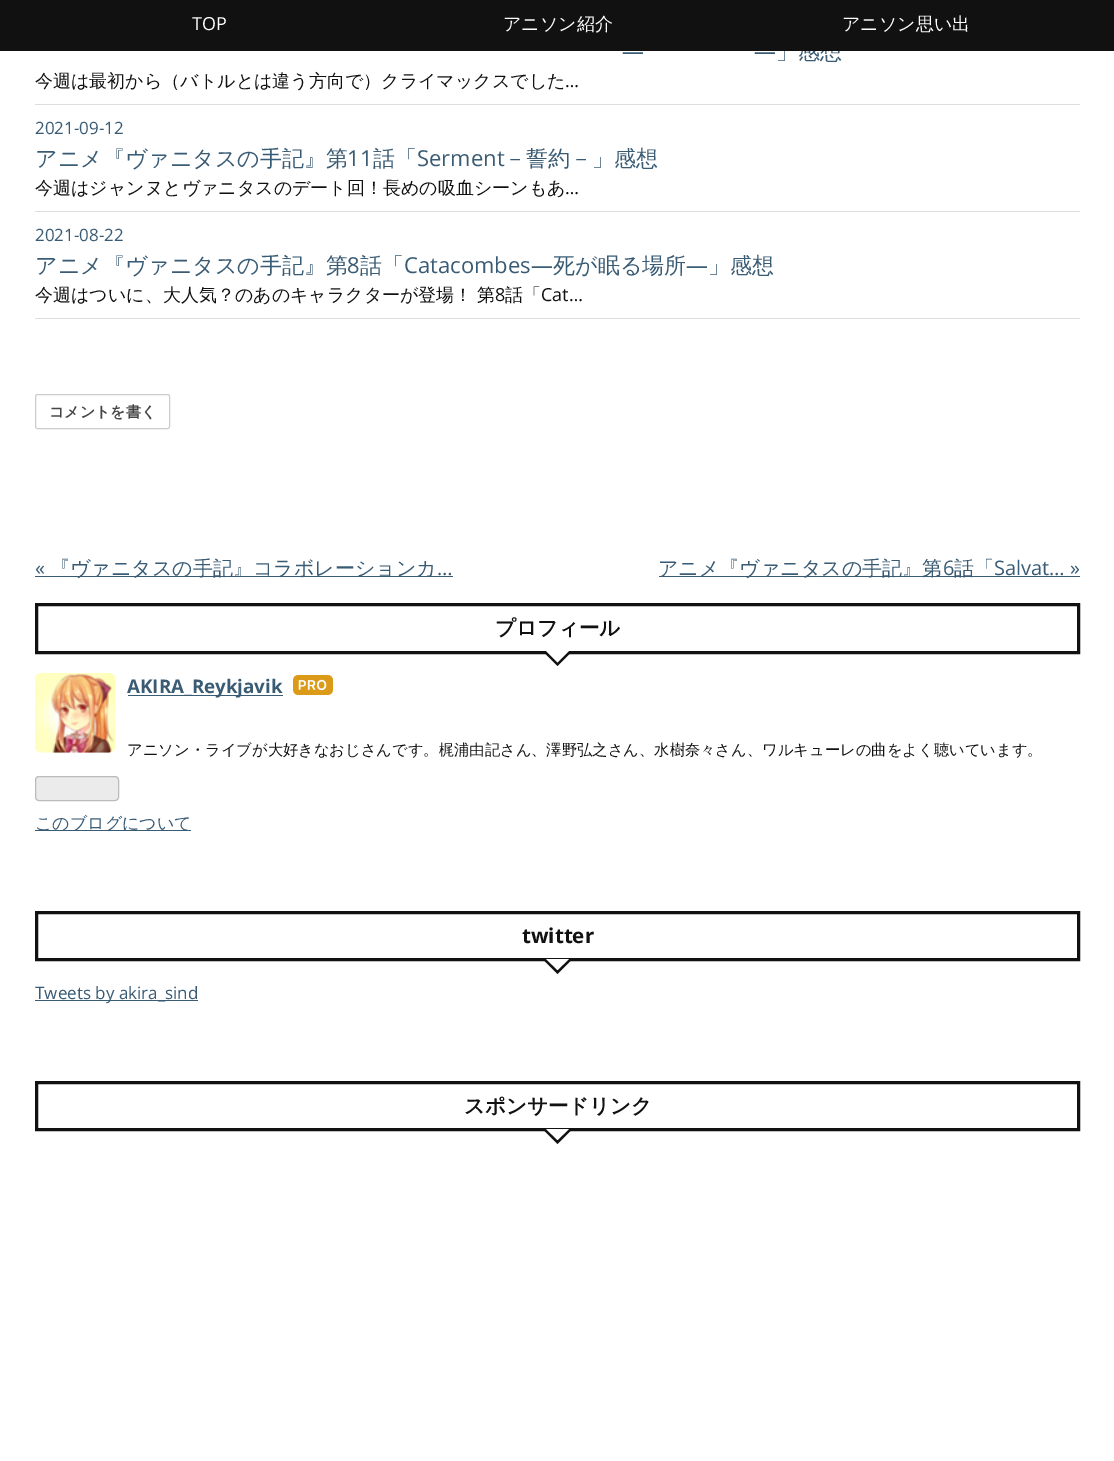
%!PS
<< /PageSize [1114 1461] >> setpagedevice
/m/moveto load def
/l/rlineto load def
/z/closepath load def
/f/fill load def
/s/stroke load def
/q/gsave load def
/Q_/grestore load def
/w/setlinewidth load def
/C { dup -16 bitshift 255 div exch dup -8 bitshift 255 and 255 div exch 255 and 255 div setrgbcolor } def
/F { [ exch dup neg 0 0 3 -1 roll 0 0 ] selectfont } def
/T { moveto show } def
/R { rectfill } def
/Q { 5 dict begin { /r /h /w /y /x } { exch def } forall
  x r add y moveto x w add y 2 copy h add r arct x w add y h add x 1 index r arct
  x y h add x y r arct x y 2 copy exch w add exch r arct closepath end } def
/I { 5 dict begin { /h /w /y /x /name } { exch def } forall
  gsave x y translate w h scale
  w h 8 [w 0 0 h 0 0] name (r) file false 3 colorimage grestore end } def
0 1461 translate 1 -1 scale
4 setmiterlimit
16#FFFFFF C
0 0 1114 1461 R
/WenQuanYiZenHei-Medium 22 F
16#395B74 C
(」感想) 776 59 T
16#111111 C
0 0 1114 51 R
/OpenSans-Regular 18 F
16#FFFFFF C
(TOP) 192 30 T
/WenQuanYiZenHei-Medium 18 F
(アニソン紹介) 503 30 T
(アニソン思い出) 842 30 T
16#DDDDDD C
35 104 1045 1 R
/OpenSans-Regular 22 F
16#395B74 C
(―) 622 59 T
(―) 754 59 T
/WenQuanYiZenHei-Medium 18 F
16#111111 C
(今週は最初から（バトルとは違う方向で）クライマックスでした) 35 87 T
/OpenSans-Regular 18 F
(…) 565 87 T
16#DDDDDD C
35 211 1045 1 R
/OpenSans-Regular 17 F
16#395B74 C
(2021-09-12) 35 134 T
/WenQuanYiZenHei-Medium 22 F
(アニメ『ヴァニタスの手記』第) 35 166 T
/OpenSans-Regular 22 F
(11) 347 166 T
/WenQuanYiZenHei-Medium 22 F
(話「) 373 166 T
/OpenSans-Regular 22 F
(Serment) 417 166 T
/WenQuanYiZenHei-Medium 22 F
(－誓約－」感想) 504 166 T
/WenQuanYiZenHei-Medium 18 F
16#111111 C
(今週はジャンヌとヴァニタスのデート回！長めの吸血シーンもあ) 35 194 T
/OpenSans-Regular 18 F
(…) 565 194 T
16#DDDDDD C
35 318 1045 1 R
/OpenSans-Regular 17 F
16#395B74 C
(2021-08-22) 35 241 T
/WenQuanYiZenHei-Medium 22 F
(アニメ『ヴァニタスの手記』第) 35 273 T
/OpenSans-Regular 22 F
(8) 347 273 T
/WenQuanYiZenHei-Medium 22 F
(話「) 360 273 T
/OpenSans-Regular 22 F
(Catacombes―) 404 273 T
/WenQuanYiZenHei-Medium 22 F
(死が眠る場所) 553 273 T
/OpenSans-Regular 22 F
(―) 686 273 T
/WenQuanYiZenHei-Medium 22 F
(」感想) 708 273 T
/WenQuanYiZenHei-Medium 18 F
16#111111 C
35 301 m -1 0 32 (今週はついに、大人気？のあのキャラクターが登場！ 第) widthshow
/OpenSans-Regular 18 F
(8) 495 301 T
/WenQuanYiZenHei-Medium 18 F
(話「) 505 301 T
/OpenSans-Regular 18 F
(Cat…) 541 301 T
16#CCCCCC C
35.5 394.5 134 34 2 Q s
/WenQuanYiZenHei-Bold 15 F
16#454545 C
(コメントを書く) 49 417 T
/OpenSans-Regular 20 F
16#395B74 C
(«) 35 575 T
35 576 418 1 R
/WenQuanYiZenHei-Medium 20 F
(『ヴァニタスの手記』コラボレーションカ) 50 575 T
/OpenSans-Regular 20 F
(…) 437 575 T
659 576 421 1 R
/WenQuanYiZenHei-Medium 20 F
(アニメ『ヴァニタスの手記』第) 658 575 T
/OpenSans-Regular 20 F
(6) 943 575 T
/WenQuanYiZenHei-Medium 20 F
(話「) 954 575 T
/OpenSans-Regular 20 F
(Salvat… ») 994 575 T
16#111111 C
3 w
36.5 604.5 1042 48 rectstroke
/WenQuanYiZenHei-Bold 20.5 F
(プロフィール) 495 635 T
542.5 651 m 30 0 l -15 15 l z f
16#FFFFFF C
546 651 m 23 0 l -11.5 11.5 l z f
(1.rgb) 35 672 80 81 I
16#395B74 C
128 695 155 1 R
/OpenSans-Bold 18.75 F
(AKIRA_Reykjavik) 127 693 T
(2.rgb) 293 675 40 20 I
/WenQuanYiZenHei-Medium 15.3 F
16#111111 C
(アニソン・ライブが大好きなおじさんです。梶浦由記さん、澤野弘之さん、水樹奈々さん、ワルキューレの曲をよく聴いています。) 127 755 T
16#EBEBEB C
35.5 776.5 83 24 3.5 Q q f Q_
16#BBBBBB C
1 w
s
16#395B74 C
35 830 156 1 R
/WenQuanYiZenHei-Medium 17 F
(このブログについて) 35 829 T
16#111111 C
3 w
36.5 912.5 1042 47 rectstroke
/OpenSans-Bold 20.5 F
(twitter) 522 943 T
542.5 959 m 30 0 l -15 15 l z f
16#FFFFFF C
546 959 m 23 0 l -11.5 11 l z f
16#395B74 C
35 1000 163 1 R
/OpenSans-Regular 17 F
(Tweets by akira_sind) 35 999 T
16#111111 C
36.5 1082.5 1042 47 rectstroke
/WenQuanYiZenHei-Bold 20.5 F
(スポンサードリンク) 464 1113 T
542.5 1129 m 30 0 l -15 15 l z f
16#FFFFFF C
546 1129 m 23 0 l -11.5 11 l z f
showpage
